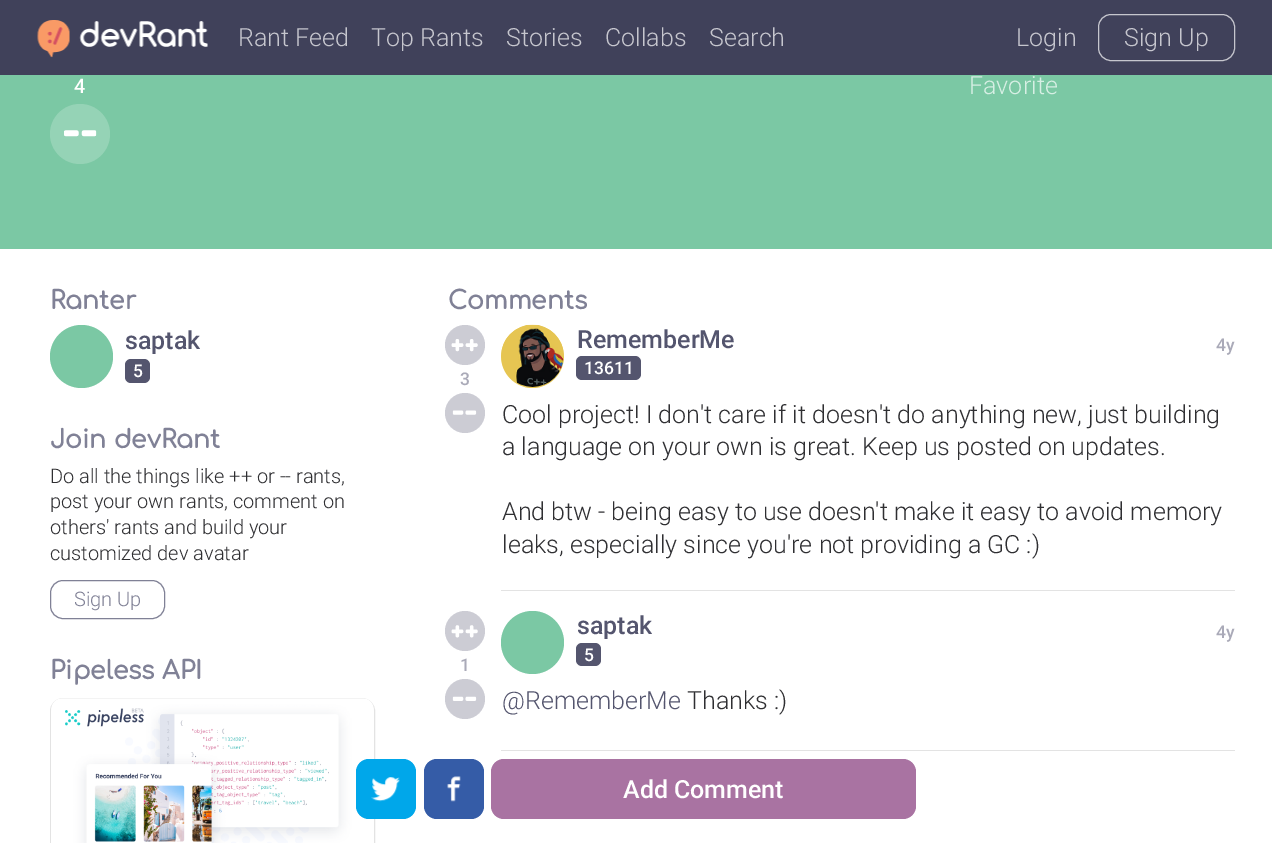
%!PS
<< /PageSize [1272 843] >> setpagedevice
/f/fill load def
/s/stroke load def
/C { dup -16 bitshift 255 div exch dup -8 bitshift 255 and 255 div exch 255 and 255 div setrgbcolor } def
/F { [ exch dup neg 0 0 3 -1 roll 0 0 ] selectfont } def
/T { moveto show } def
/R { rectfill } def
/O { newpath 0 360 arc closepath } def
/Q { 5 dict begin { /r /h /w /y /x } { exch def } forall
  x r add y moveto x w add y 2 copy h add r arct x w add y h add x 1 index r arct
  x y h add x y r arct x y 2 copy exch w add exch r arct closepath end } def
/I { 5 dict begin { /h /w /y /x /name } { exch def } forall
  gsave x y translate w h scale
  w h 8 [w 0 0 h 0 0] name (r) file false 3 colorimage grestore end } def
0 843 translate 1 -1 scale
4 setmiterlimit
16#FFFFFF C
0 0 1272 843 R
16#40415A C
0 0 1272 75 R
(1.rgb) 37 20 33 38 I
(2.rgb) 47 27 16 18 I
(3.rgb) 79 21 129 26 I
/Roboto-Light 25 F
16#C6C6CE C
(Rant Feed) 238 46 T
(Top Rants) 371 46 T
(Stories) 506 46 T
(Collabs) 605 46 T
(Search) 709 46 T
(Login) 1016 46 T
1098.5 14.5 136 46 12.5 Q s
(Sign Up) 1124 46 T
16#7BC8A4 C
0 75 1272 174 R
/Roboto-Medium 20 F
16#FFFFFF C
(4) 74 93 T
16#95D3B6 C
80 134 30 O f
(4.rgb) 64 130 33 7 I
/Roboto-Light 25 F
16#D7EFE4 C
(Favorite) 969 94 T
/Comfortaa-Bold 25 F
16#808196 C
(Ranter) 50 309 T
16#7BC8A4 C
81.5 356.5 31.5 O f
/Roboto-Medium 25 F
16#54556E C
(saptak) 125 349 T
125 359 25 24 6 Q f
/Roboto-Medium 17.5 F
16#FFFFFF C
(5) 133 377 T
/Comfortaa-Bold 25 F
16#808196 C
(Join devRant) 50 448 T
/Roboto-Light 20 F
16#2F2F32 C
(Do all the things like ++ or -- rants,) 50 483 T
(post your own rants, comment on) 50 508 T
(others' rants and build your) 50 534 T
(customized dev avatar) 50 560 T
16#808196 C
50.5 580.5 114 38 12.5 Q s
(Sign Up) 74 606 T
/Comfortaa-Bold 25 F
(Pipeless API) 50 679 T
16#E3E3E3 C
50.5 698.5 324 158 12.5 Q s
(5.rgb) 51 698 323 145 I
16#808196 C
(Comments) 448 309 T
16#CCCCD4 C
465 345 20 O f
(6.rgb) 451 339 27 13 I
/Roboto-Medium 17.5 F
16#AAAAB8 C
(3) 460 385 T
16#CCCCD4 C
465 413 20 O f
(7.rgb) 452 410 25 5 I
16#E3E3E3 C
501 590 734 1 R
16#E6C653 C
532.5 356.5 31.5 O f
(8.rgb) 501 324 63 63 I
/Roboto-Medium 25 F
16#54556E C
(RememberMe) 577 348 T
576 356 65 24 6 Q f
/Roboto-Medium 17.5 F
16#FFFFFF C
(13611) 584 374 T
16#AAAAB8 C
(4y) 1216 351 T
/Roboto-Light 25 F
16#2F2F32 C
(Cool project! I don't care if it doesn't do anything new, just building) 502 423 T
(a language on your own is great. Keep us posted on updates.) 502 455 T
(And btw - being easy to use doesn't make it easy to avoid memory) 502 520 T
(leaks, especially since you're not providing a GC :\)) 502 553 T
16#CCCCD4 C
465 631 20 O f
(9.rgb) 451 625 27 13 I
/Roboto-Medium 17.5 F
16#AAAAB8 C
(1) 460 671 T
16#CCCCD4 C
465 699 20 O f
(10.rgb) 452 696 25 5 I
16#E3E3E3 C
501 750 734 1 R
16#7BC8A4 C
532.5 642.5 31.5 O f
/Roboto-Medium 25 F
16#54556E C
(saptak) 577 634 T
576 643 25 23 6 Q f
/Roboto-Medium 17.5 F
16#FFFFFF C
(5) 584 661 T
16#AAAAB8 C
(4y) 1216 638 T
/Roboto-Light 25 F
16#54556E C
(@RememberMe) 502 709 T
16#2F2F32 C
(Thanks :\)) 687 709 T
16#00A7EA C
356 759 60 60 13 Q f
(11.rgb) 371 777 29 25 I
16#355CA7 C
424 759 60 60 13 Q f
(12.rgb) 447 776 14 26 I
16#A973A2 C
491 759 425 60 13 Q f
/Roboto-Medium 25 F
16#FFFFFF C
(Add Comment) 623 798 T
showpage
